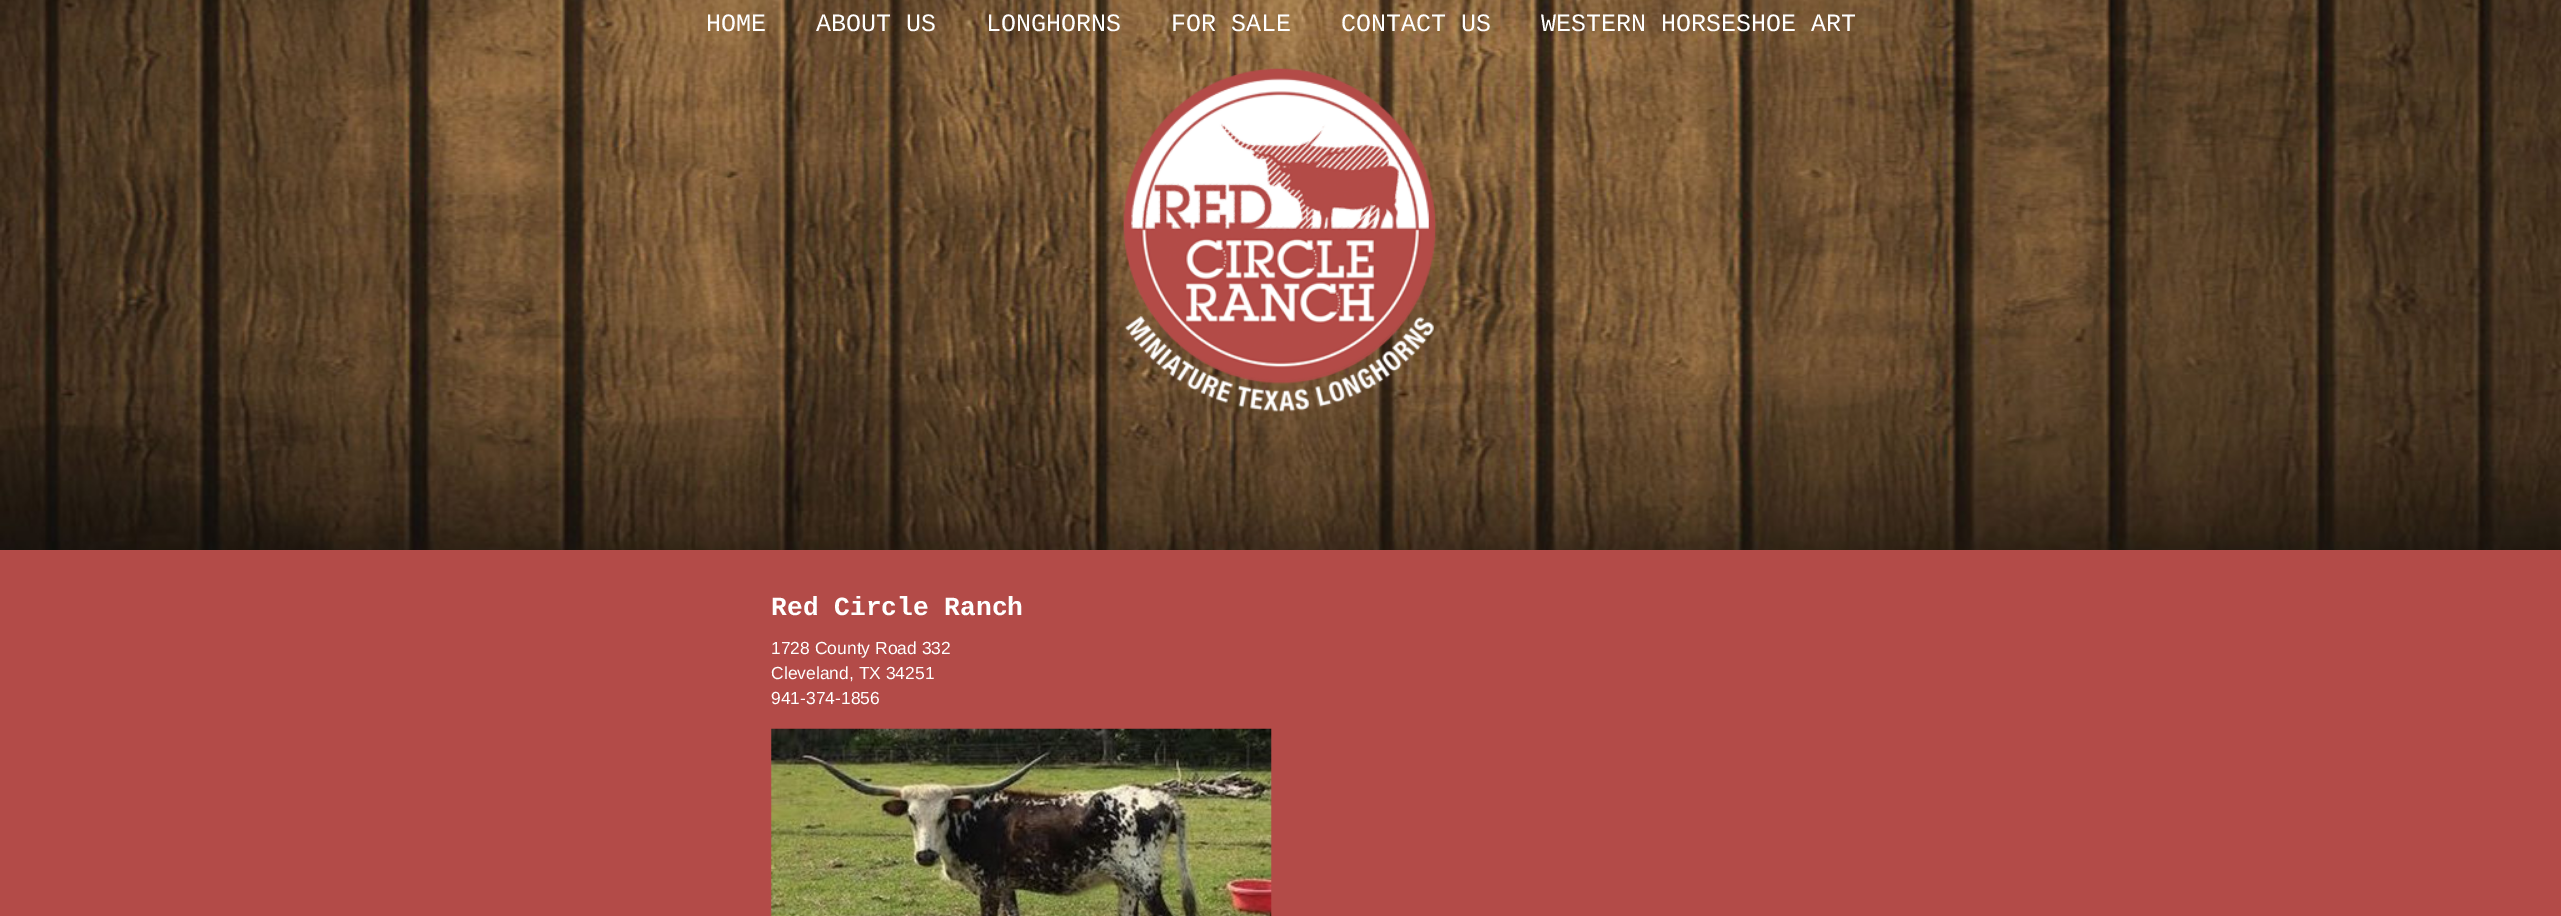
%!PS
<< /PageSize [2561 916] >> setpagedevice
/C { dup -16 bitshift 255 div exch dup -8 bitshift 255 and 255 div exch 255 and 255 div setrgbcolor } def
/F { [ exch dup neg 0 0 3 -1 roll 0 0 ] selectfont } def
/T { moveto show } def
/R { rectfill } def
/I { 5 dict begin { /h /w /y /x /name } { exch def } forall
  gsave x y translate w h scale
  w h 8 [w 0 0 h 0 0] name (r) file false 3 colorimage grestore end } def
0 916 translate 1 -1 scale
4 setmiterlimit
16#B34B48 C
0 0 2561 916 R
(1.rgb) 0 0 2561 550 I
(2.rgb) 1123 68 314 344 I
/LiberationMono-Regular 25 F
16#FFFFFF C
(HOME) 706 31 T
(ABOUT US) 816 31 T
(LONGHORNS) 986 31 T
(FOR SALE) 1171 31 T
(CONTACT US) 1341 31 T
(WESTERN HORSESHOE ART) 1541 31 T
/LiberationMono-Bold 26.25 F
(Red Circle Ranch) 771 615 T
/LiberationSans-Regular 17.5 F
(1728 County Road 332) 771 654 T
(Cleveland, TX 34251) 771 679 T
(941-374-1856) 771 704 T
(3.rgb) 771 728 501 188 I
showpage
